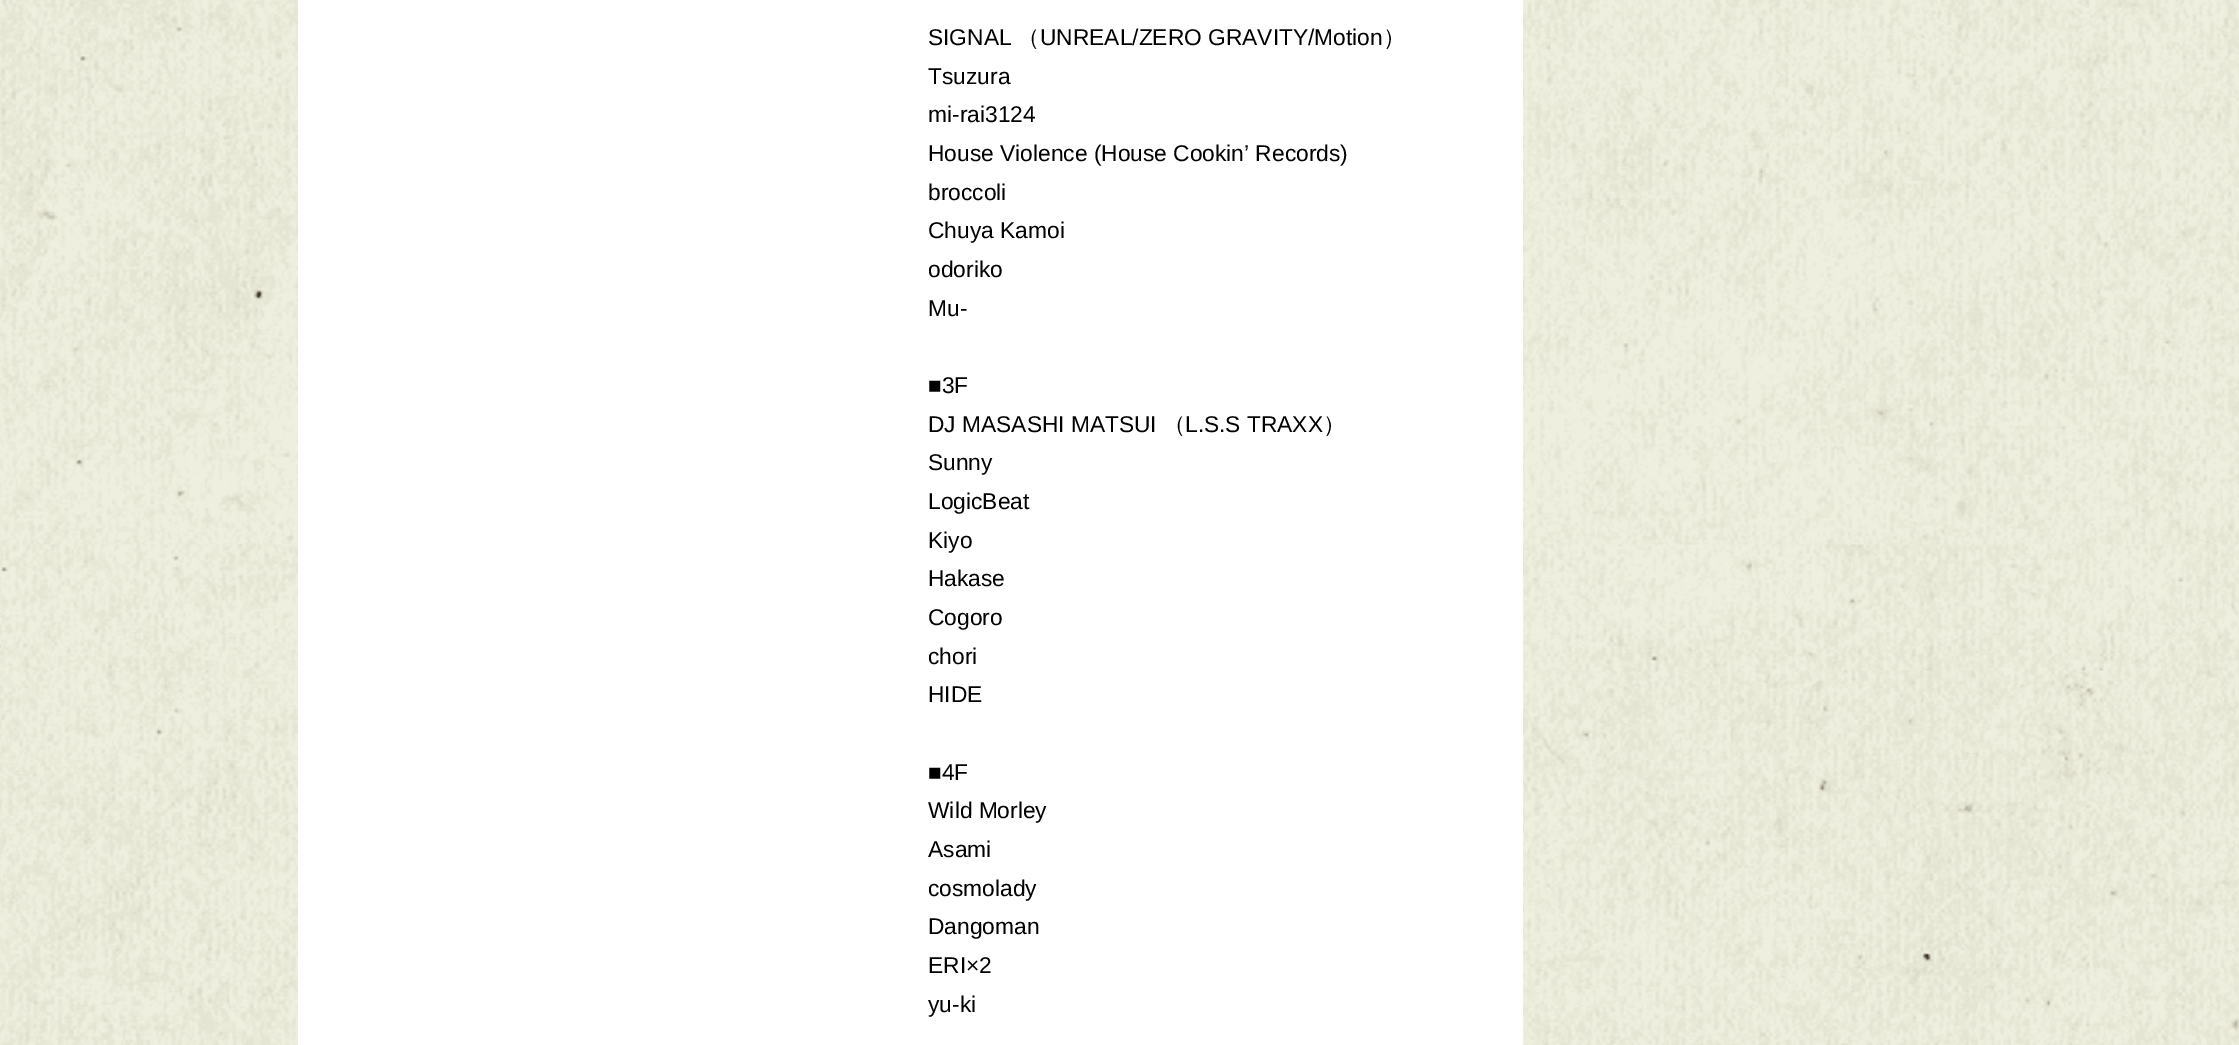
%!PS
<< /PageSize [2239 1045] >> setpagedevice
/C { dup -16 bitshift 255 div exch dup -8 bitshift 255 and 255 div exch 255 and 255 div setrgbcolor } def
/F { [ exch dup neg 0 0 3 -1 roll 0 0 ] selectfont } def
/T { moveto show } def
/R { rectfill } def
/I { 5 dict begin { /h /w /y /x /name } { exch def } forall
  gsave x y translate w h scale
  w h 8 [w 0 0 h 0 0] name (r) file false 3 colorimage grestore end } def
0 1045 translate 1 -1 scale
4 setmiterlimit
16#FFFFFF C
0 0 2239 1045 R
(1.rgb) 0 0 2239 1045 I
298 0 1225 1045 R
/LiberationSans-Regular 22.75 F
16#000000 C
(SIGNAL) 928 45 T
/WenQuanYiZenHei-Medium 22.75 F
(（) 1017 45 T
/LiberationSans-Regular 22.75 F
(UNREAL/ZERO GRAVITY/Motion) 1040 45 T
/WenQuanYiZenHei-Medium 22.75 F
(）) 1383 45 T
/LiberationSans-Regular 22.75 F
(Tsuzura) 928 84 T
(mi-rai3124) 928 122 T
(House Violence \(House Cookin’ Records\)) 928 161 T
(broccoli) 928 200 T
(Chuya Kamoi) 928 238 T
(odoriko) 928 277 T
(Mu-) 928 316 T
(■3F) 928 393 T
(DJ MASASHI MATSUI) 928 432 T
/WenQuanYiZenHei-Medium 22.75 F
(（) 1163 432 T
/LiberationSans-Regular 22.75 F
(L.S.S TRAXX) 1185 432 T
/WenQuanYiZenHei-Medium 22.75 F
(）) 1323 432 T
/LiberationSans-Regular 22.75 F
(Sunny) 928 470 T
(LogicBeat) 928 509 T
(Kiyo) 928 548 T
(Hakase) 928 586 T
(Cogoro) 928 625 T
(chori) 928 664 T
(HIDE) 928 702 T
(■4F) 928 780 T
(Wild Morley) 928 818 T
(Asami) 928 857 T
(cosmolady) 928 896 T
(Dangoman) 928 934 T
(ERI×2) 928 973 T
(yu-ki) 928 1012 T
showpage
